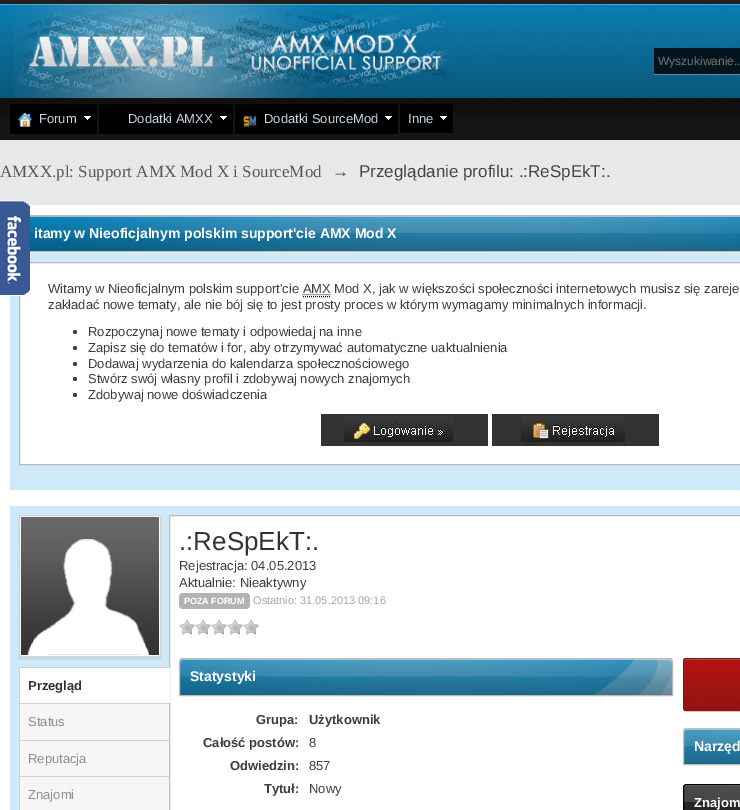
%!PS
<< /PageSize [740 810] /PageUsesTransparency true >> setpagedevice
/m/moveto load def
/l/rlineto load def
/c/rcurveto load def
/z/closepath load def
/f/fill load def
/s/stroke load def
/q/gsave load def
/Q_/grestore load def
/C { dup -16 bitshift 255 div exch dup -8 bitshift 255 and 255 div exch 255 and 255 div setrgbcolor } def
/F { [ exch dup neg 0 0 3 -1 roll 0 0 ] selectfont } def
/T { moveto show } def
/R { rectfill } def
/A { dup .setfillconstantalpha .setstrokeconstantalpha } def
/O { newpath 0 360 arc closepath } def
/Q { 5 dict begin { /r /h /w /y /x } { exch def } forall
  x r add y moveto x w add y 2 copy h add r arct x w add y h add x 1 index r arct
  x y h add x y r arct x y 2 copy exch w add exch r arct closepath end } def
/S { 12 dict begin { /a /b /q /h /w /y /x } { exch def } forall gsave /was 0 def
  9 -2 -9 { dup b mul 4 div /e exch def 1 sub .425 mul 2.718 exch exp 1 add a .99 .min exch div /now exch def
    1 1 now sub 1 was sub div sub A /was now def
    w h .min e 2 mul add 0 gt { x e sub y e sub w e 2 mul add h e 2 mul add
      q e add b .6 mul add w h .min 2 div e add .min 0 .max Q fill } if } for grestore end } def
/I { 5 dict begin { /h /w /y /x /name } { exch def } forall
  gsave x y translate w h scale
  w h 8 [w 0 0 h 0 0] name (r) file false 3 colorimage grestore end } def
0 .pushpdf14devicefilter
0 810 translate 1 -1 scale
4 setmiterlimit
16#202020 C
0 0 740 810 R
16#0895D6 C
0 4 740 94 R
(1.rgb) 0 4 740 94 I
0.3 A
16#FFFFFF C
0 4 740 1 R
1 A
(2.rgb) 14 4 299 94 I
(3.rgb) 17 8 437 86 I
0.3 A
654 73 m 0 2 l 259 0 l 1 0 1 -1 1 -2 c -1 1 l -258 0 l z f
0.8 A
16#000000 C
654 48 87 26 1 Q f
/LiberationSans-Regular 12 F
1 A
16#757575 C
(Wyszukiwanie..) 658 65 T
16#151515 C
0 98 740 42 R
(4.rgb) 0 98 740 17 I
16#000000 C
10 104 87 30 R
(5.rgb) 84 116 7 4 I
(6.rgb) 18 113 14 14 I
/LiberationSans-Regular 13 F
16#C5D5E2 C
(Forum) 39 123 T
16#000000 C
99 104 134 30 R
(5.rgb) 220 116 7 4 I
16#C5D5E2 C
(Dodatki AMXX) 128 123 T
16#000000 C
235 104 163 30 R
(5.rgb) 385 116 7 4 I
(7.rgb) 243 115 14 12 I
16#C5D5E2 C
(Dodatki SourceMod) 264 123 T
16#000000 C
400 104 53 29 R
(5.rgb) 440 116 7 4 I
16#C5D5E2 C
(Inne) 408 123 T
(8.rgb) 0 140 740 65 I
/LiberationSerif-Regular 17 F
16#585858 C
(AMXX.pl: Support AMX Mod X i SourceMod) 0 177 T
/LiberationSans-Regular 17 F
16#444444 C
(→) 332 177 T
(Przeglądanie profilu: .:ReSpEkT:.) 359 177 T
16#FFFFFF C
0 205 740 605 R
16#0895D6 C
30 216 710 35 R
(9.rgb) 30 216 710 35 I
0.5 A
16#FFFFFF C
14 217 m 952 0 l 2 0 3 1 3 3 c 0 -2 -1 -4 -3 -4 c -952 0 l -2 0 -3 2 -3 4 c 0 -2 1 -3 3 -3 c z f
1 A
16#BBBBBB C
10.5 215.5 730 36 rectstroke
/LiberationSans-Bold 14 F
16#FFFFFF C
(itamy w Nieoficjalnym polskim support'cie AMX Mod X) 34 238 T
16#CEEAF7 C
10 253 730 237 R
16#FFFFFF C
19.5 262.5 m 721 0 l 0 202 l -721 0 l z q f Q_
16#BBBBBB C
s
/LiberationSans-Regular 13 F
16#3D3D3D C
(Witamy w Nieoficjalnym polskim support'cie AMX Mod X, jak w większości społeczności internetowych musisz się zareje) 48 293 T
[1 1] 0 setdash
302.5 294.5 m 28.5 0 l s
16#000000 C
303 296.5 m 28 0 l s
16#3D3D3D C
(zakładać nowe tematy, ale nie bój się to jest prosty proces w którym wymagamy minimalnych informacji.) 48 309 T
75 332 2 O f
(Rozpoczynaj nowe tematy i odpowiedaj na inne) 88 336 T
75 348 2 O f
(Zapisz się do tematów i for, aby otrzymywać automatyczne uaktualnienia) 88 352 T
75 364 2 O f
(Dodawaj wydarzenia do kalendarza społecznościowego) 88 368 T
75 379 2 O f
(Stwórz swój własny profil i zdobywaj nowych znajomych) 88 383 T
75 395 2 O f
(Zdobywaj nowe doświadczenia) 88 399 T
(10.rgb) 321 414 167 32 I
(11.rgb) 492 414 167 32 I
16#CEEAF7 C
10 506 730 304 R
16#000000 C
19 517 142 142 0 1 .1 S
16#FFFFFF C
19.5 515.5 m 141 0 l 0 141 l -141 0 l z q f Q_
16#D5D5D5 C
[] 0 setdash
s
(12.rgb) 21 517 138 138 I
16#D2D2D2 C
19 667 150 1 R
19 667 1 143 R
20 703 149 1 R
16#FFFFFF C
169.5 515.5 m 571 0 l 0 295 l -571 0 l z q f Q_
16#BBBBBB C
s
16#FFFFFF C
20 668 150 35 R
/LiberationSans-Bold 13 F
16#323232 C
(Przegląd) 28 690 T
16#F6F6F6 C
20 704 149 36 R
16#D2D2D2 C
20 740 149 1 R
/LiberationSans-Regular 13 F
16#8D8D8D C
(Status) 28 726 T
16#F6F6F6 C
20 741 149 35 R
16#D2D2D2 C
20 776 149 1 R
16#8D8D8D C
(Reputacja) 28 763 T
16#F6F6F6 C
20 777 149 33 R
16#8D8D8D C
(Znajomi) 28 799 T
/LiberationSans-Regular 26 F
16#323232 C
(.:ReSpEkT:.) 179 550 T
/LiberationSans-Regular 13 F
16#3D3D3D C
(Rejestracja: 04.05.2013) 179 570 T
(Aktualnie: Nieaktywny) 179 587 T
16#B3B3B3 C
179 593 71 16 4 Q f
/LiberationSans-Bold 9 F
16#FFFFFF C
(POZA FORUM) 184 604 T
/LiberationSans-Regular 11 F
16#A4A4A4 C
(Ostatnio: 31.05.2013 09:16) 253 604 T
(13.rgb) 179 619 16 16 I
(13.rgb) 195 619 16 16 I
(13.rgb) 211 619 16 16 I
(13.rgb) 227 619 16 16 I
(13.rgb) 243 619 16 16 I
16#0895D6 C
183 658 m 486 0 l 2 0 4 2 4 4 c 0 34 l -494 0 l 0 -34 l 0 -2 2 -4 4 -4 c z f
(14.rgb) 179 658 494 37 I
0.5 A
16#FFFFFF C
183 660 m 486 0 l 2 0 3 1 3 3 c 0 -1 l 0 -2 -1 -3 -3 -3 c -486 0 l -2 0 -3 1 -3 3 c 0 1 l 0 -2 1 -3 3 -3 c z f
1 A
16#BBBBBB C
183 658.5 m 486 0 l 2 0 3.5 1.5 3.5 3.5 c 0 33.5 l -493 0 l 0 -33.5 l 0 -2 1.5 -3.5 3.5 -3.5 c z s
/LiberationSans-Bold 14 F
16#FFFFFF C
(Statystyki) 190 681 T
/LiberationSans-Bold 13 F
16#3D3D3D C
(Grupa:) 256 724 T
(Użytkownik) 309 724 T
(Całość postów:) 203 747 T
/LiberationSans-Regular 13 F
(8) 309 747 T
/LiberationSans-Bold 13 F
(Odwiedzin:) 230 770 T
/LiberationSans-Regular 13 F
(857) 309 770 T
/LiberationSans-Bold 13 F
(Tytuł:) 264 793 T
/LiberationSans-Regular 13 F
(Nowy) 309 793 T
16#D91313 C
683 658 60 53 3 Q f
(15.rgb) 683 659 57 52 I
0.3 A
16#FFFFFF C
686 660 m 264 0 l 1 0 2 1 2 2 c 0 -2 l -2 -1 l -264 0 l -2 0 -2 2 -2 3 c 0 -1 1 -2 2 -2 c z f
1 A
16#8C1313 C
683.5 658.5 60 52 2.5 Q s
16#0895D6 C
687 728 m 53 0 l 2 0 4 2 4 4 c 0 33 l -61 0 l 0 -33 l 0 -2 2 -4 4 -4 c z f
(16.rgb) 683 728 57 36 I
0.5 A
16#FFFFFF C
687 730 m 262 0 l 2 0 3 1 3 3 c 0 -2 -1 -4 -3 -4 c -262 0 l -2 0 -3 2 -3 4 c 0 -2 1 -3 3 -3 c z f
1 A
16#BBBBBB C
687 728.5 m 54 0 l 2 0 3.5 1.5 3.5 3.5 c 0 32.5 l -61 0 l 0 -32.5 l 0 -2 1.5 -3.5 3.5 -3.5 c z s
/LiberationSans-Bold 14 F
16#FFFFFF C
(Narzęd) 694 751 T
16#FCFCFC C
683 784 4 4 R
16#111111 C
687 784 m 53 0 l 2 0 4 2 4 4 c 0 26 l -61 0 l 0 -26 l 0 -2 2 -4 4 -4 c z f
(17.rgb) 683 784 57 26 I
0.3 A
16#FFFFFF C
687 786 m 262 0 l 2 0 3 1 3 3 c 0 -2 -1 -4 -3 -4 c -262 0 l -2 0 -3 2 -3 4 c 0 -2 1 -3 3 -3 c z f
1 A
16#000000 C
687 784.5 m 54 0 l 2 0 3.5 1.5 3.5 3.5 c 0 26.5 l -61 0 l 0 -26.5 l 0 -2 1.5 -3.5 3.5 -3.5 c z s
/LiberationSans-Bold 13 F
16#FFFFFF C
(Znajom) 694 807 T
(18.rgb) 0 200 30 96 I
.poppdf14devicefilter showpage
